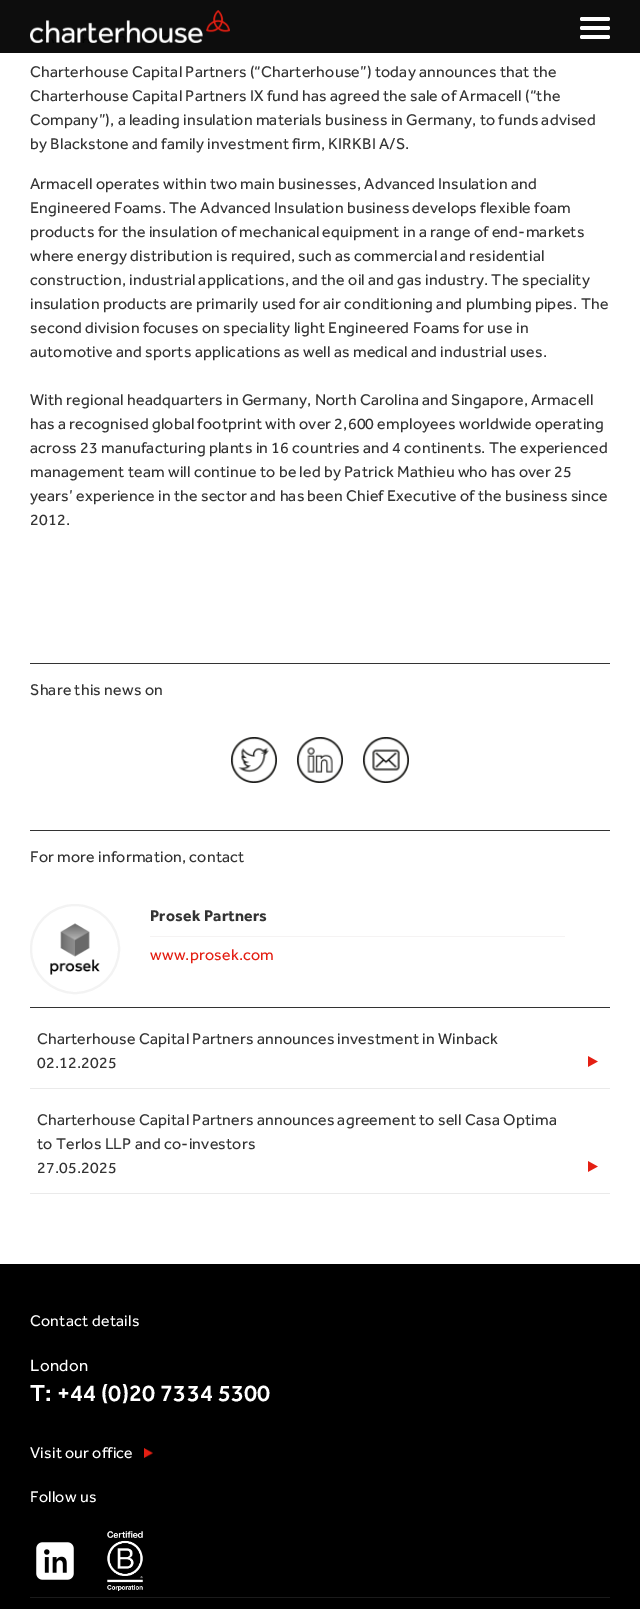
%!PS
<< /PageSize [640 1609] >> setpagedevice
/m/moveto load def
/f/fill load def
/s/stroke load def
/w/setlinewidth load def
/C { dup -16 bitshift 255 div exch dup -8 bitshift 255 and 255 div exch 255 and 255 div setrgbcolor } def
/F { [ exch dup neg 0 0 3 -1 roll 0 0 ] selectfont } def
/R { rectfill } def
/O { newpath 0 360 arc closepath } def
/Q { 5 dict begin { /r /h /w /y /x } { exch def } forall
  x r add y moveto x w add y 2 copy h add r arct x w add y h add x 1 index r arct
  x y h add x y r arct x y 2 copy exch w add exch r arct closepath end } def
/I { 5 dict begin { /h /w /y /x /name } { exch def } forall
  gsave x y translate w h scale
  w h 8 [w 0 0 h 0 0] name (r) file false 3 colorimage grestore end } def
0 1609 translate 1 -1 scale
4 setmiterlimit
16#000000 C
0 0 640 1609 R
16#0D0D0D C
0 0 640 53 R
(1.rgb) 30 10 200 33 I
16#FFFFFF C
580 17 30 4 2 Q f
580 26 30 4 2 Q f
580 35 30 4 2 Q f
0 53 640 1211 R
/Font-Regular 16 F
16#333333 C
30 77 m .2 0 (Charterhouse Capital Partners \(“Charterhouse”\) today announces that the) ashow
30 101 m .2 0 (Charterhouse Capital Partners IX fund has agreed the sale of Armacell \(“the) ashow
30 125 m .2 0 (Company”\), a leading insulation materials business in Germany, to funds advised) ashow
30 149 m .2 0 (by Blackstone and family investment firm, KIRKBI A/S.) ashow
30 189 m .2 0 (Armacell operates within two main businesses, Advanced Insulation and) ashow
30 213 m .2 0 (Engineered Foams. The Advanced Insulation business develops flexible foam) ashow
30 237 m .2 0 (products for the insulation of mechanical equipment in a range of end-markets) ashow
30 261 m .2 0 (where energy distribution is required, such as commercial and residential) ashow
30 285 m .2 0 (construction, industrial applications, and the oil and gas industry. The speciality) ashow
30 309 m .2 0 (insulation products are primarily used for air conditioning and plumbing pipes. The) ashow
30 333 m .2 0 (second division focuses on speciality light Engineered Foams for use in) ashow
30 357 m .2 0 (automotive and sports applications as well as medical and industrial uses.) ashow
30 405 m .2 0 (With regional headquarters in Germany, North Carolina and Singapore, Armacell) ashow
30 429 m .2 0 (has a recognised global footprint with over 2,600 employees worldwide operating) ashow
30 453 m .2 0 (across 23 manufacturing plants in 16 countries and 4 continents. The experienced) ashow
30 477 m .2 0 (management team will continue to be led by Patrick Mathieu who has over 25) ashow
30 501 m .2 0 (years’ experience in the sector and has been Chief Executive of the business since) ashow
30 525 m .2 0 (2012.) ashow
30 663 580 1 R
30 695 m .2 0 (Share this news on) ashow
(2.rgb) 231 737 46 46 I
(3.rgb) 297 737 46 46 I
(4.rgb) 363 737 46 46 I
30 830 580 1 R
30 862 m .2 0 (For more information, contact) ashow
16#F3F3F3 C
2 w
75 949 44 O s
(5.rgb) 50 923 50 52 I
/Font-Bold 16 F
16#333333 C
150 921 m .2 0 (Prosek Partners) ashow
16#F5F3F3 C
150 936 415 1 R
/Font-Regular 16 F
16#E41F13 C
150 960 m .2 0 (www.prosek.com) ashow
16#333333 C
30 1007 580 1 R
16#EAEAEA C
30 1088 580 1 R
16#333333 C
37 1044 m .2 0 (Charterhouse Capital Partners announces investment in Winback) ashow
37 1068 m .2 0 (02.12.2025) ashow
(6.rgb) 588 1056 10 11 I
16#EAEAEA C
30 1193 580 1 R
16#333333 C
37 1125 m .2 0 (Charterhouse Capital Partners announces agreement to sell Casa Optima) ashow
37 1149 m .2 0 (to Terlos LLP and co-investors) ashow
37 1173 m .2 0 (27.05.2025) ashow
(6.rgb) 588 1161 10 11 I
16#1A1A1A C
30 1597 580 1 R
16#FFFFFF C
30 1326 m .25 0 (Contact details) ashow
/Font-Regular 17 F
30 1371 m .25 0 (London) ashow
/Font-Medium 24 F
30 1401 m .2 0 (T: +44 \(0\)20 7334 5300) ashow
/Font-Regular 16 F
30 1458 m .2 0 (Visit our office) ashow
(7.rgb) 144 1448 9 10 I
30 1502 m .25 0 (Follow us) ashow
(8.rgb) 36 1542 38 38 I
(9.rgb) 107 1531 36 60 I
showpage
